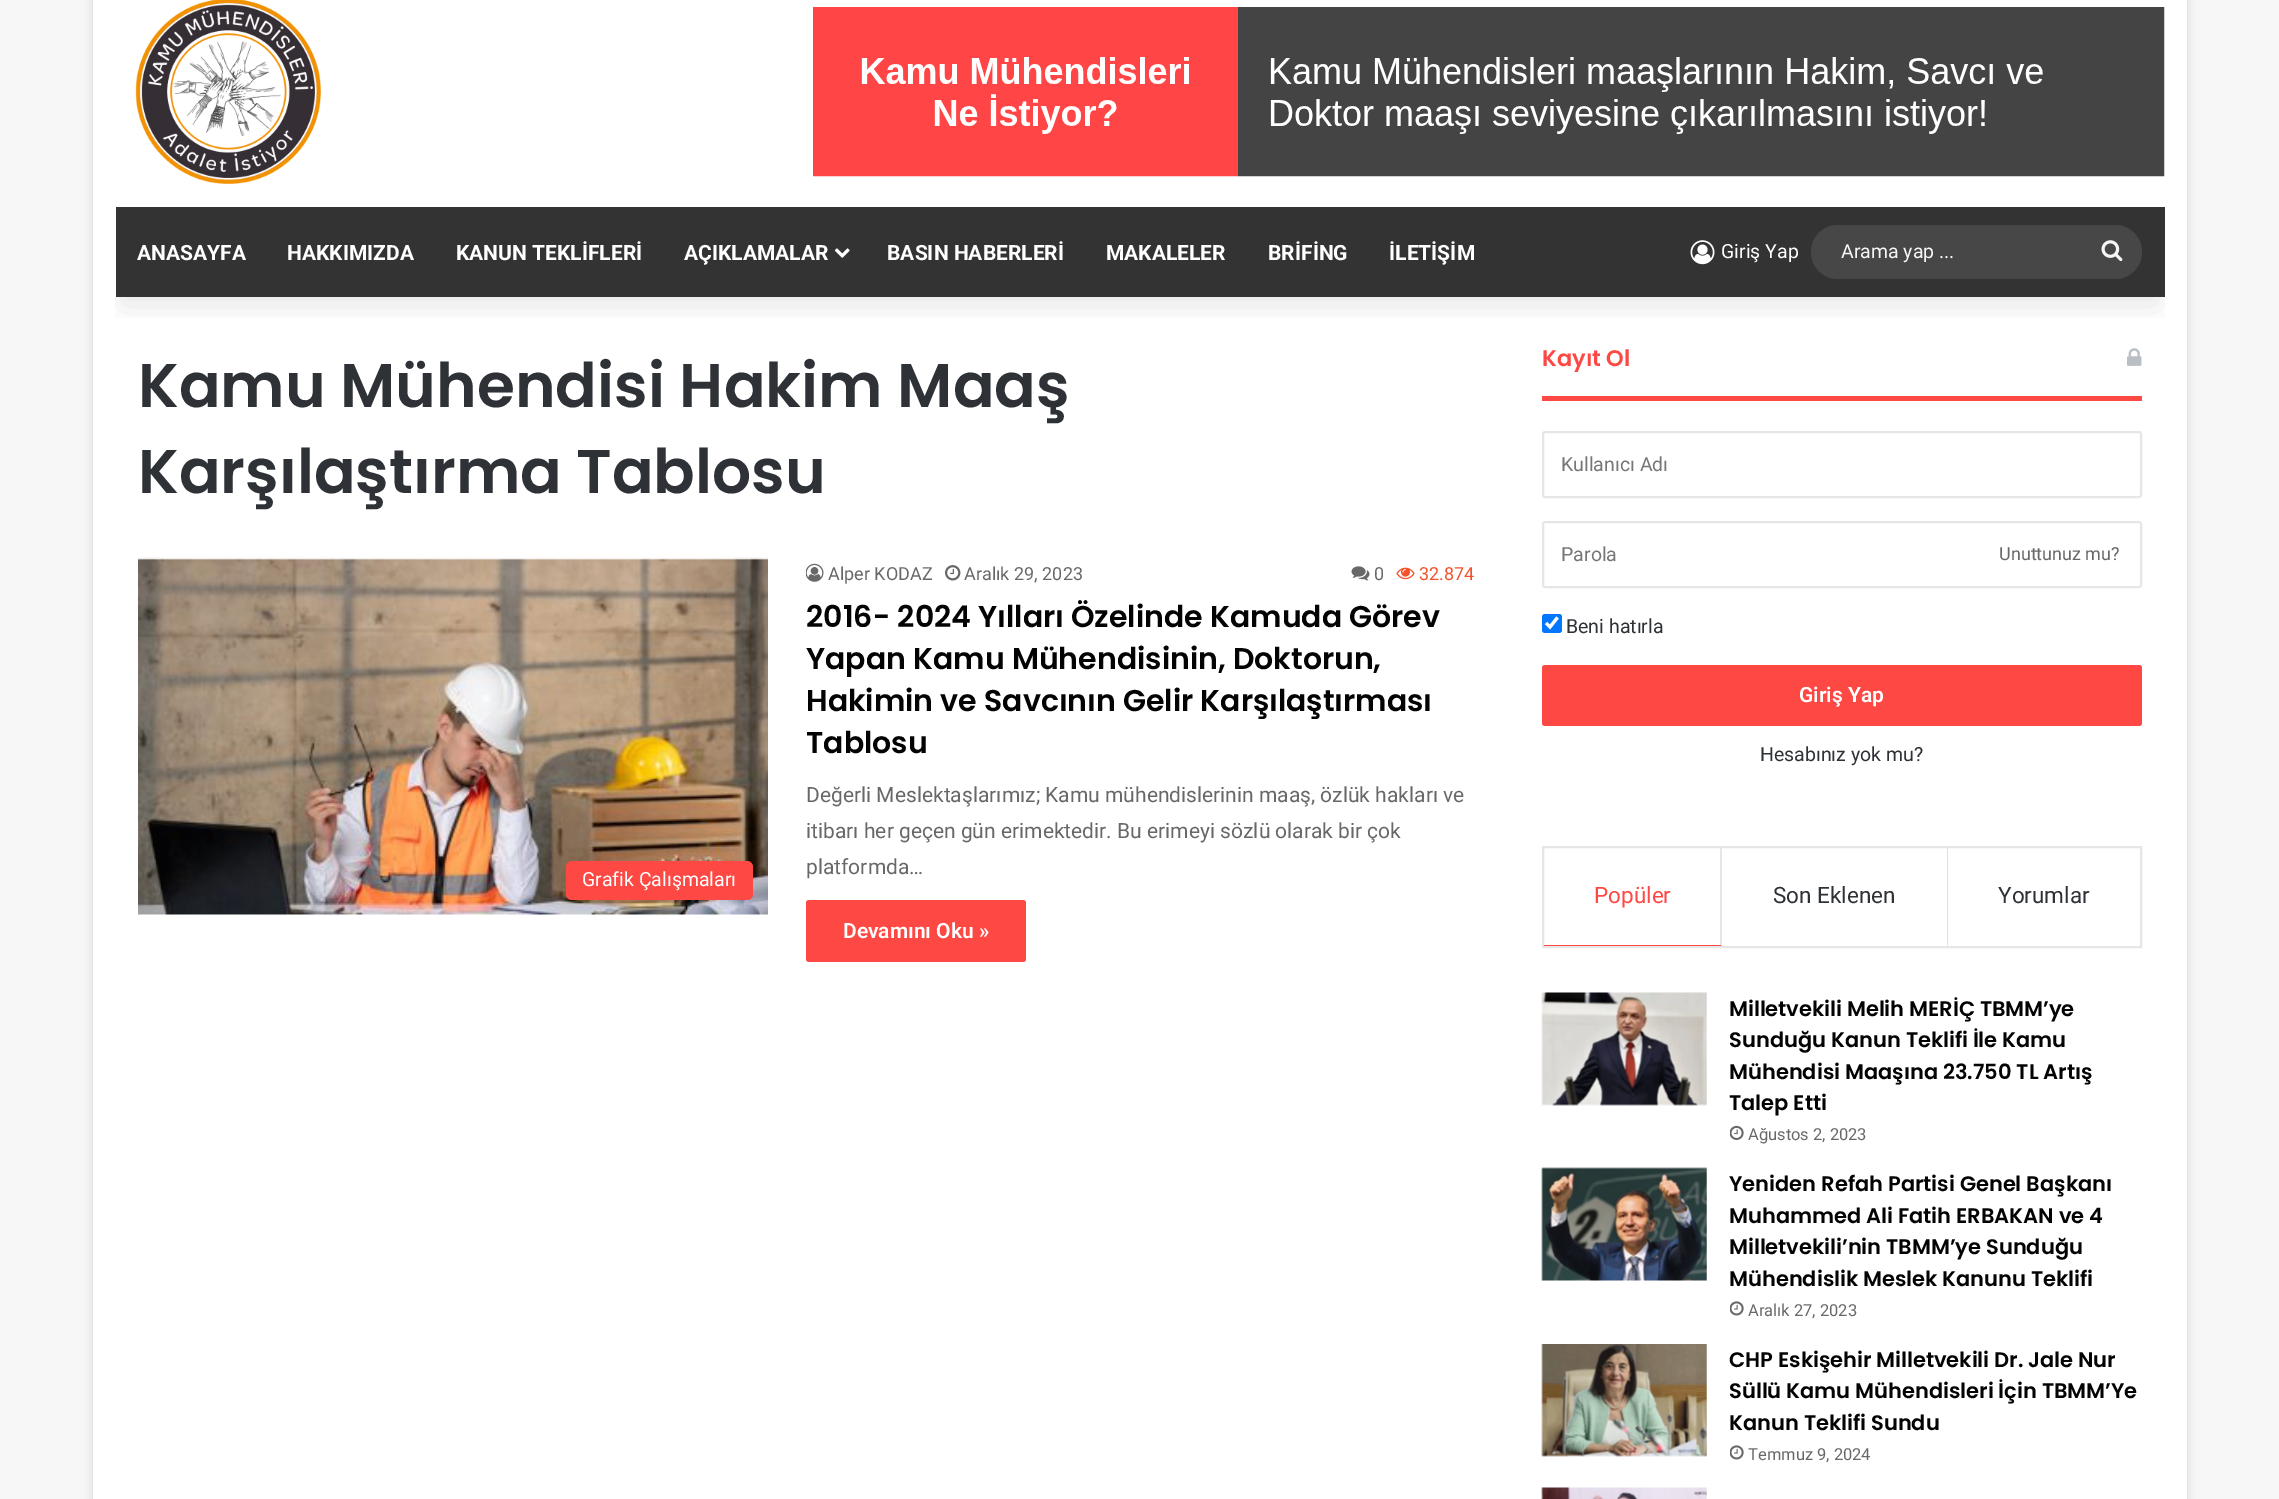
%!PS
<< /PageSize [2279 1499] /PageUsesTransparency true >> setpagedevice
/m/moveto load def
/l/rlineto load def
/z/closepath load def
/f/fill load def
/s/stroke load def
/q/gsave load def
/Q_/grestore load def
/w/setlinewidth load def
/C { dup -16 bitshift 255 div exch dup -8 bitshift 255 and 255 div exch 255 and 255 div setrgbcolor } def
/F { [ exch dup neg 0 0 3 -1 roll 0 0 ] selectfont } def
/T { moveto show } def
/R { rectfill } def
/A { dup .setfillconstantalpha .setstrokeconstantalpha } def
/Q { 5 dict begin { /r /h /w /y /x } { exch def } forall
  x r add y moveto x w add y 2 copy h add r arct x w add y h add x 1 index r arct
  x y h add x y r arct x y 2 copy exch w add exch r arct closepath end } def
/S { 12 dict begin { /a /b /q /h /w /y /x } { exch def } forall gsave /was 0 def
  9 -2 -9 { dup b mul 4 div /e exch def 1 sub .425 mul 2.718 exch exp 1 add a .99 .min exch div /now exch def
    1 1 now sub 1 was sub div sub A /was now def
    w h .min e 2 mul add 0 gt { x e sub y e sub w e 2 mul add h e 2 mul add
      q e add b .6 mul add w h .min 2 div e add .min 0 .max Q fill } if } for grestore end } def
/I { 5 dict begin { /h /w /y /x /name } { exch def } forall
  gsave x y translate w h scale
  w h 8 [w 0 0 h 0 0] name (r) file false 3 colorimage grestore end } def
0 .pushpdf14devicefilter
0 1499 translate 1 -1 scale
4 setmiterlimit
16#F7F7F7 C
0 0 2279 1499 R
16#ABABAB C
93 -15 2094 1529 0 5 .5 S
16#FFFFFF C
93 0 2094 1499 R
(11.rgb) 2127 348 15 18 I
q
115 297 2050 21 rectclip
16#000000 C
123 45 2034 260 0 15 .1 S
Q_
(1.rgb) 135 0 186 184 I
(2.rgb) 813 7 1352 170 I
16#333333 C
116 207 2049 90 R
/Roboto-Bold 21 F
16#FFFFFF C
(ANASAYFA) 137 260 T
(HAKKIMIZDA) 287 260 T
(KANUN TEKLİFLERİ) 456 260 T
(AÇIKLAMALAR) 684 260 T
(3.rgb) 834 248 16 10 I
(BASIN HABERLERİ) 887 260 T
(MAKALELER) 1106 260 T
(BRİFİNG) 1268 260 T
(İLETİŞİM) 1389 260 T
(4.rgb) 1690 240 25 25 I
/Roboto-Regular 19.5 F
(Giriş Yap) 1721 258 T
16#474747 C
1811 225 331 54 27 Q f
16#F6F6F6 C
(Arama yap ...) 1841 258 T
(5.rgb) 2101 240 22 22 I
/Poppins-SemiBold 61.5 F
16#2E3136 C
(Kamu Mühendisi Hakim Maaş) 138 407 T
(Karşılaştırma Tablosu) 138 493 T
(6.rgb) 138 557 630 358 I
16#FE4843 C
566 861 187 39 6 Q f
/Roboto-Regular 19.5 F
16#FFFFFF C
(Grafik Çalışmaları) 582 886 T
(7.rgb) 806 563 18 19 I
/Roboto-Regular 18 F
16#686868 C
(Alper KODAZ) 828 580 T
(8.rgb) 945 565 16 16 I
(Aralık 29, 2023) 964 580 T
(9.rgb) 1351 566 19 15 I
(0) 1374 580 T
(10.rgb) 1396 567 19 13 I
16#F3522C C
(32.874) 1419 580 T
/Poppins-SemiBold 30 F
16#030303 C
(2016- 2024 Yılları Özelinde Kamuda Görev) 806 627 T
(Yapan Kamu Mühendisinin, Doktorun,) 806 669 T
(Hakimin ve Savcının Gelir Karşılaştırması) 806 711 T
(Tablosu) 806 753 T
/Roboto-Regular 21 F
16#686868 C
(Değerli Meslektaşlarımız; Kamu mühendislerinin maaş, özlük hakları ve) 806 802 T
(itibarı her geçen gün erimektedir. Bu erimeyi sözlü olarak bir çok) 806 838 T
(platformda…) 806 874 T
16#FE4843 C
806 900 220 62 3 Q f
/Roboto-SemiBold 21 F
16#FFFFFF C
(Devamını Oku ») 843 938 T
16#FE4843 C
1542 396 600 5 R
/Poppins-SemiBold 22.5 F
(Kayıt Ol) 1542 366 T
16#E6E6E6 C
2 w
1543 432 598 65 2 Q s
/Roboto-Regular 19.5 F
16#767676 C
(Kullanıcı Adı) 1561 471 T
16#E6E6E6 C
1543 522 598 65 2 Q s
16#767676 C
(Parola) 1561 561 T
/Roboto-Regular 18 F
16#686868 C
(Unuttunuz mu?) 1999 560 T
16#0376FF C
1542 614 20 19 3 Q f
16#FFFFFF C
3.1 w
1546 623 m 4 4 l 7.5 -9.5 l s
/Roboto-Regular 19.5 F
16#2E3136 C
(Beni hatırla) 1566 633 T
16#FE4843 C
1542 665 600 61 3 Q f
/Roboto-SemiBold 21 F
16#FFFFFF C
(Giriş Yap) 1799 702 T
/Roboto-Regular 19.5 F
16#2E3136 C
(Hesabınız yok mu?) 1760 761 T
16#E6E6E6 C
2 w
1543 847 598 100 rectstroke
1722 848 m 0 98 l -2 -1 l 0 -97 l z f
16#FE4843 C
1722 946 m -178 0 l 0 -1 l 176 0 l z f
/Roboto-Regular 22.5 F
(Popüler) 1594 903 T
16#E1E1E1 C
1948 848 m 0 98 l -1 -1 l 0 -97 l z f
16#2E3136 C
(Son Eklenen) 1773 903 T
(Yorumlar) 1998 903 T
(12.rgb) 1541 992 166 114 I
/Poppins-SemiBold 21 F
16#030303 C
(Milletvekili Melih MERİÇ TBMM’ye) 1729 1016 T
(Sunduğu Kanun Teklifi İle Kamu) 1729 1047 T
(Mühendisi Maaşına 23.750 TL Artış) 1729 1079 T
(Talep Etti) 1729 1110 T
(13.rgb) 1730 1125 14 15 I
/Roboto-Regular 16.5 F
16#686868 C
(Ağustos 2, 2023) 1748 1140 T
(14.rgb) 1541 1167 166 114 I
/Poppins-SemiBold 21 F
16#030303 C
(Yeniden Refah Partisi Genel Başkanı) 1729 1191 T
(Muhammed Ali Fatih ERBAKAN ve 4) 1729 1223 T
(Milletvekili’nin TBMM’ye Sunduğu) 1729 1254 T
(Mühendislik Meslek Kanunu Teklifi) 1729 1286 T
(15.rgb) 1730 1301 14 15 I
/Roboto-Regular 16.5 F
16#686868 C
(Aralık 27, 2023) 1748 1316 T
(16.rgb) 1541 1344 166 113 I
/Poppins-SemiBold 21 F
16#030303 C
(CHP Eskişehir Milletvekili Dr. Jale Nur) 1729 1367 T
(Süllü Kamu Mühendisleri İçin TBMM’Ye) 1729 1398 T
(Kanun Teklifi Sundu) 1729 1430 T
(15.rgb) 1730 1445 14 15 I
/Roboto-Regular 16.5 F
16#686868 C
(Temmuz 9, 2024) 1748 1460 T
(17.rgb) 1541 1487 166 12 I
.poppdf14devicefilter showpage
